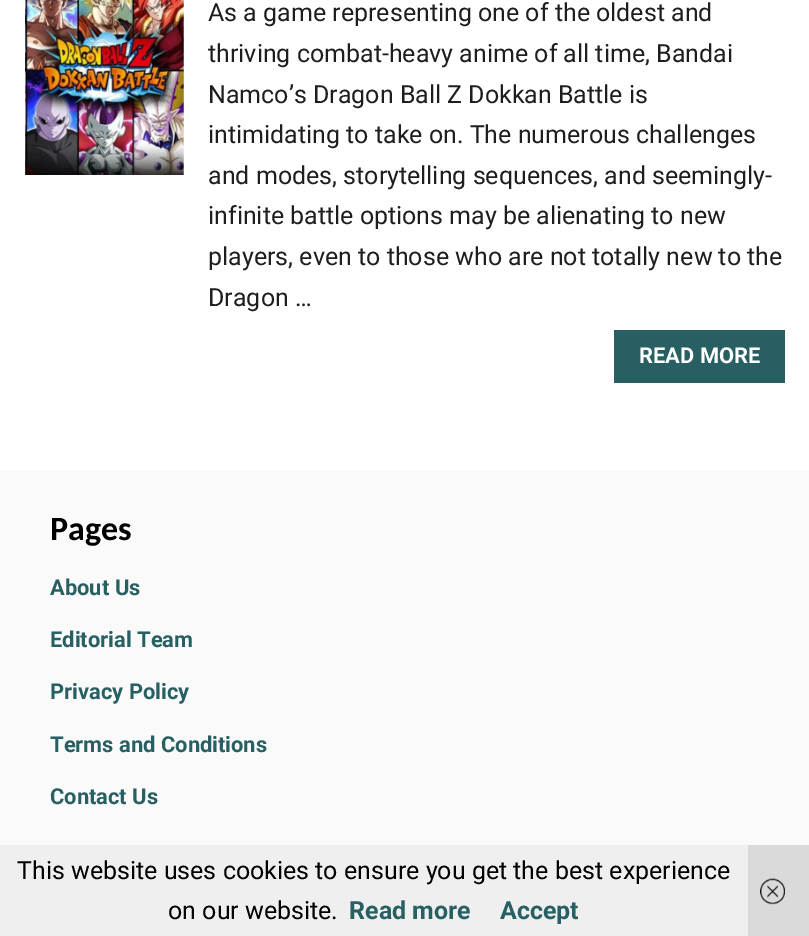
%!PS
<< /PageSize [809 936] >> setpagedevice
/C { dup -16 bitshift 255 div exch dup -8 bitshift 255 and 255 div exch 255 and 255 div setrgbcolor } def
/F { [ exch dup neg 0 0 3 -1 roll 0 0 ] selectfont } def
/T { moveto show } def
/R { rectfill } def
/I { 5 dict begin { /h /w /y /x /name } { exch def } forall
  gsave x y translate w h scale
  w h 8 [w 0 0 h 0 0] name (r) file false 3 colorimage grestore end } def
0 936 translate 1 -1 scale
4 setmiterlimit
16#FFFFFF C
0 0 809 936 R
(1.rgb) 25 0 159 175 I
/Roboto-Regular 25 F
16#1E1E1E C
(As a game representing one of the oldest and) 208 21 T
(thriving combat-heavy anime of all time, Bandai) 208 62 T
(Namco’s Dragon Ball Z Dokkan Battle is) 208 103 T
(intimidating to take on. The numerous challenges) 208 143 T
(and modes, storytelling sequences, and seemingly-) 208 184 T
(infinite battle options may be alienating to new) 208 224 T
(players, even to those who are not totally new to the) 208 265 T
(Dragon …) 208 306 T
16#275F62 C
614 330 171 53 R
/Roboto-Bold 21.9 F
16#FFFFFF C
(READ MORE) 639 363 T
16#FAFAFA C
0 470 809 375 R
16#EFEFEF C
0 845 748 91 R
/Carlito-Bold 34 F
16#000000 C
(Pages) 50 540 T
/Roboto-Bold 21.9 F
16#275F62 C
(About Us) 50 595 T
(Editorial Team) 50 647 T
(Privacy Policy) 50 699 T
(Terms and Conditions) 50 752 T
(Contact Us) 50 804 T
/Roboto-Regular 25 F
16#000000 C
(This website uses cookies to ensure you get the best experience) 17 879 T
(on our website.) 168 919 T
/Roboto-Bold 25 F
16#275F62 C
(Read more) 349 919 T
(Accept) 500 919 T
16#DADADA C
748 845 61 91 R
(2.rgb) 760 878 25 27 I
showpage
